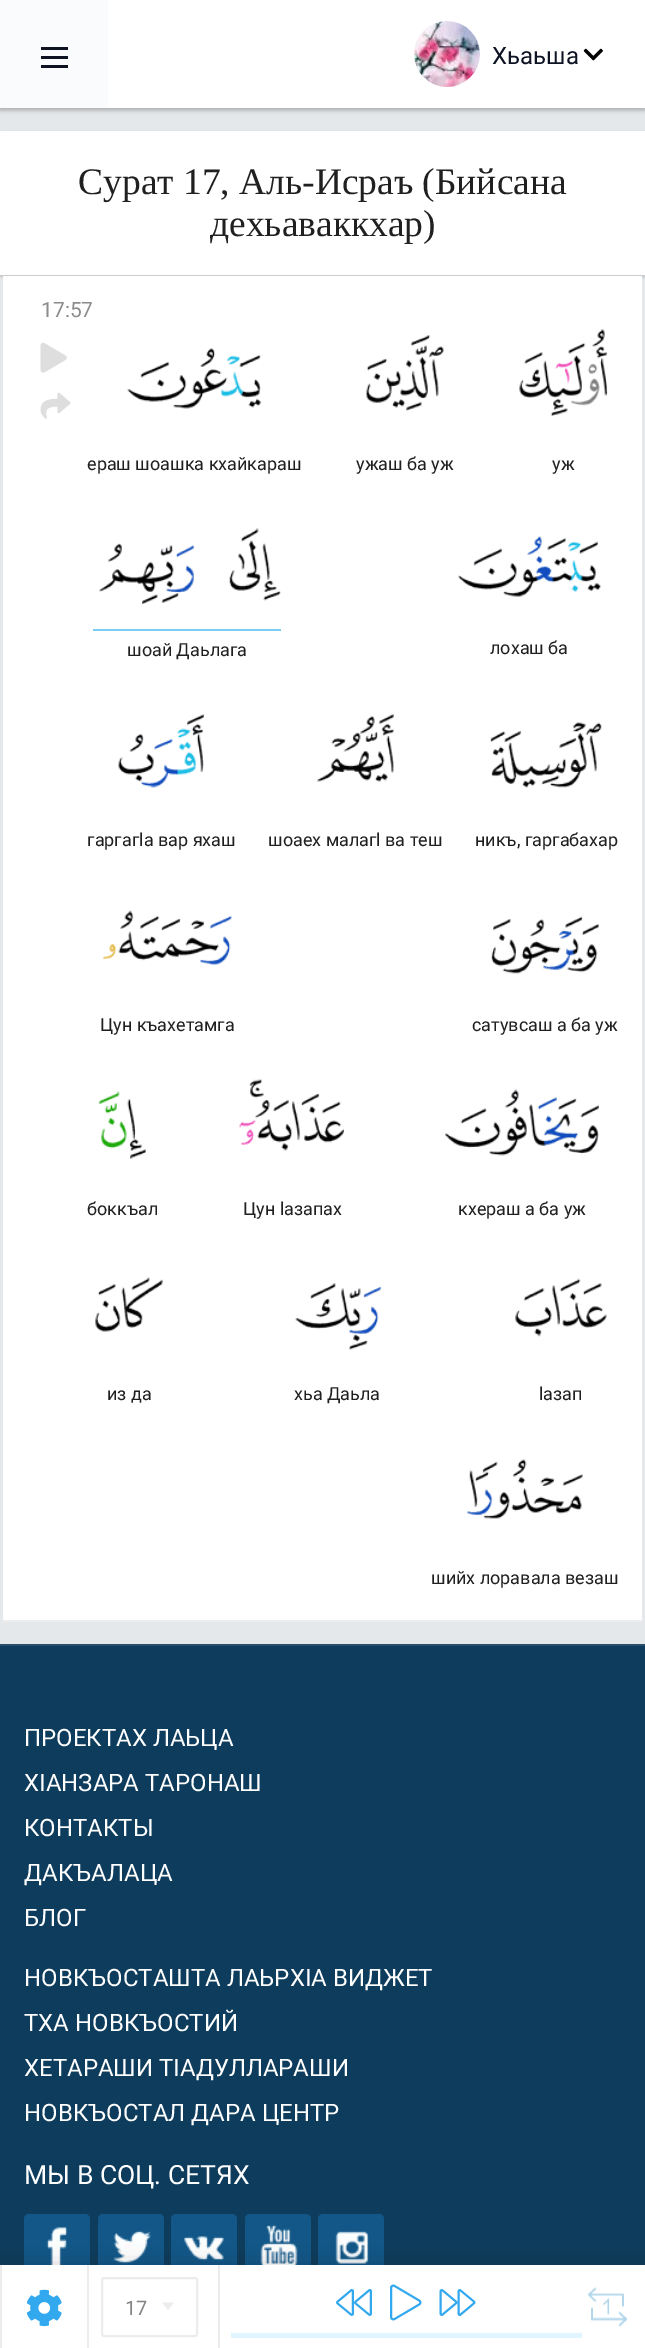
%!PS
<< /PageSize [645 2348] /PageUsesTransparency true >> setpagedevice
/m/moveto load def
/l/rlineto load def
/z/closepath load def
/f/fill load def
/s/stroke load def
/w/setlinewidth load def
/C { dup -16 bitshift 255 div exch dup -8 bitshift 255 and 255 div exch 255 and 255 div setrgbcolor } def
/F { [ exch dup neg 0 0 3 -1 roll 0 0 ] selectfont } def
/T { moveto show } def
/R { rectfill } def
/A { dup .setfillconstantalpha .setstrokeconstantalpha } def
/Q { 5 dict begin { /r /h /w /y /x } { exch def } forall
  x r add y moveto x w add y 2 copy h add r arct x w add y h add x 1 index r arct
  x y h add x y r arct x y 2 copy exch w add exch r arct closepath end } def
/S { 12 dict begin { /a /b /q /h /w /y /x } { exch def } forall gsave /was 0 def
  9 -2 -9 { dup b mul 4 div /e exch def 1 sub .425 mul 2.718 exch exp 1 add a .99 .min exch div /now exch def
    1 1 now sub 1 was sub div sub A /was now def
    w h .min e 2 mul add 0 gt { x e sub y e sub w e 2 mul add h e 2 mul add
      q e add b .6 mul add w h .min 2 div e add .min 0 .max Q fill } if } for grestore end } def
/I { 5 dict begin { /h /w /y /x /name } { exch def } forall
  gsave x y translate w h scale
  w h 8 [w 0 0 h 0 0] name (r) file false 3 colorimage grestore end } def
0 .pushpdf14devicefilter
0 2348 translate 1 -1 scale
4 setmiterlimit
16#E5E8EB C
0 0 645 2348 R
16#000000 C
0 2 645 108 0 1.5 .2 S
16#AAAAAA C
0 2 645 108 0 3 .5 S
16#FFFFFF C
108 0 537 108 R
16#FAFBFC C
0 0 108 108 R
16#0D1322 C
41 47 27 3 R
41 56 27 3 R
41 65 27 3 R
(1.rgb) 414 21 66 66 I
/Roboto-Regular 24 F
(Хьаьша) 492 64 T
(2.rgb) 583 48 20 13 I
16#000000 C
2 132 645 146 0 1 .1 S
16#FFFFFF C
0 131 645 144 R
16#CCCCCC C
0 275 645 2 R
/LiberationSerif-Regular 37.5 F
16#202020 C
(Сурат 17, Аль-Исраъ \(Бийсана) 78 194 T
(дехьаваккхар\)) 210 236 T
16#FFFFFF C
3 276 639 1344 R
16#EEEEEE C
3 1620 639 2 R
/Roboto-Regular 21 F
16#8C8C8C C
(17:57) 41 317 T
(3.rgb) 40 342 27 31 I
(4.rgb) 40 392 31 27 I
(5.rgb) 127 348 134 61 I
/Roboto-Regular 18 F
16#202020 C
(ераш шоашка кхайкараш) 87 470 T
(6.rgb) 366 335 78 76 I
(ужаш ба уж) 356 470 T
(7.rgb) 519 329 89 87 I
(уж) 552 470 T
(8.rgb) 98 543 96 61 I
(9.rgb) 229 528 52 73 I
16#78CEF3 C
93 629 188 2 R
16#202020 C
(шоай Даьлага) 127 656 T
(10.rgb) 458 536 143 61 I
(лохаш ба) 490 654 T
(11.rgb) 118 714 86 74 I
(гаргагlа вар яхаш) 87 846 T
(12.rgb) 317 714 77 68 I
(шоаех малагl ва теш) 268 846 T
(13.rgb) 490 722 112 66 I
(никъ, гаргабахар) 475 846 T
(14.rgb) 103 910 129 55 I
(Цун къахетамга) 100 1031 T
(15.rgb) 491 916 108 58 I
(сатувсаш а ба уж) 472 1031 T
(16.rgb) 98 1091 48 68 I
(боккъал) 87 1215 T
(17.rgb) 239 1079 105 72 I
(Цун lазапах) 243 1215 T
(18.rgb) 445 1089 154 67 I
(кхераш а ба уж) 458 1215 T
(19.rgb) 95 1277 68 55 I
(из да) 107 1400 T
(20.rgb) 295 1283 86 67 I
(хьа Даьла) 294 1400 T
(21.rgb) 515 1278 92 59 I
(lазап) 539 1400 T
(22.rgb) 467 1459 116 60 I
(шийх лоравала везаш) 431 1584 T
16#0E3C5C C
0 1646 645 619 R
16#125788 C
24 2214 66 66 5 Q f
(28.rgb) 46 2227 22 38 I
98 2214 66 66 5 Q f
(29.rgb) 113 2230 39 34 I
171 2214 66 66 5 Q f
(30.rgb) 184 2236 40 25 I
245 2214 66 66 5 Q f
(31.rgb) 260 2224 38 41 I
318 2214 66 66 5 Q f
(32.rgb) 335 2231 34 33 I
16#000000 C
-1 2264 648 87 0 11 .15 S
16#FFFFFF C
2 2265 643 83 R
16#ECECEC C
87 2265 2 83 R
0 2265 2 83 R
(23.rgb) 26 2289 36 38 I
2 w
102 2278 95 58 2 Q s
/Roboto-Regular 20 F
16#828282 C
(17) 125 2315 T
16#ECECEC C
162 2302.5 m 12 0 l -6 7.5 l z f
218 2265 2 83 R
(24.rgb) 336 2289 36 27 I
(25.rgb) 390 2284 32 37 I
(26.rgb) 439 2289 37 27 I
16#E0F5FF C
231 2333 351 5 R
(27.rgb) 588 2287 39 40 I
16#27506D C
0 1644 645 2 R
/Roboto-Regular 24 F
16#FFFFFF C
(ПРОЕКТАХ ЛАЬЦА) 24 1746 T
(ХIАНЗАРА ТАРОНАШ) 24 1791 T
(КОНТАКТЫ) 24 1836 T
(ДАКЪАЛАЦА) 24 1881 T
(БЛОГ) 24 1926 T
(НОВКЪОСТАШТА ЛАЬРХIА ВИДЖЕТ) 24 1986 T
(ТХА НОВКЪОСТИЙ) 24 2031 T
(ХЕТАРАШИ ТIАДУЛЛАРАШИ) 24 2076 T
(НОВКЪОСТАЛ ДАРА ЦЕНТР) 24 2121 T
/Roboto-Regular 26.5 F
(МЫ В СОЦ. СЕТЯХ) 24 2184 T
.poppdf14devicefilter showpage
